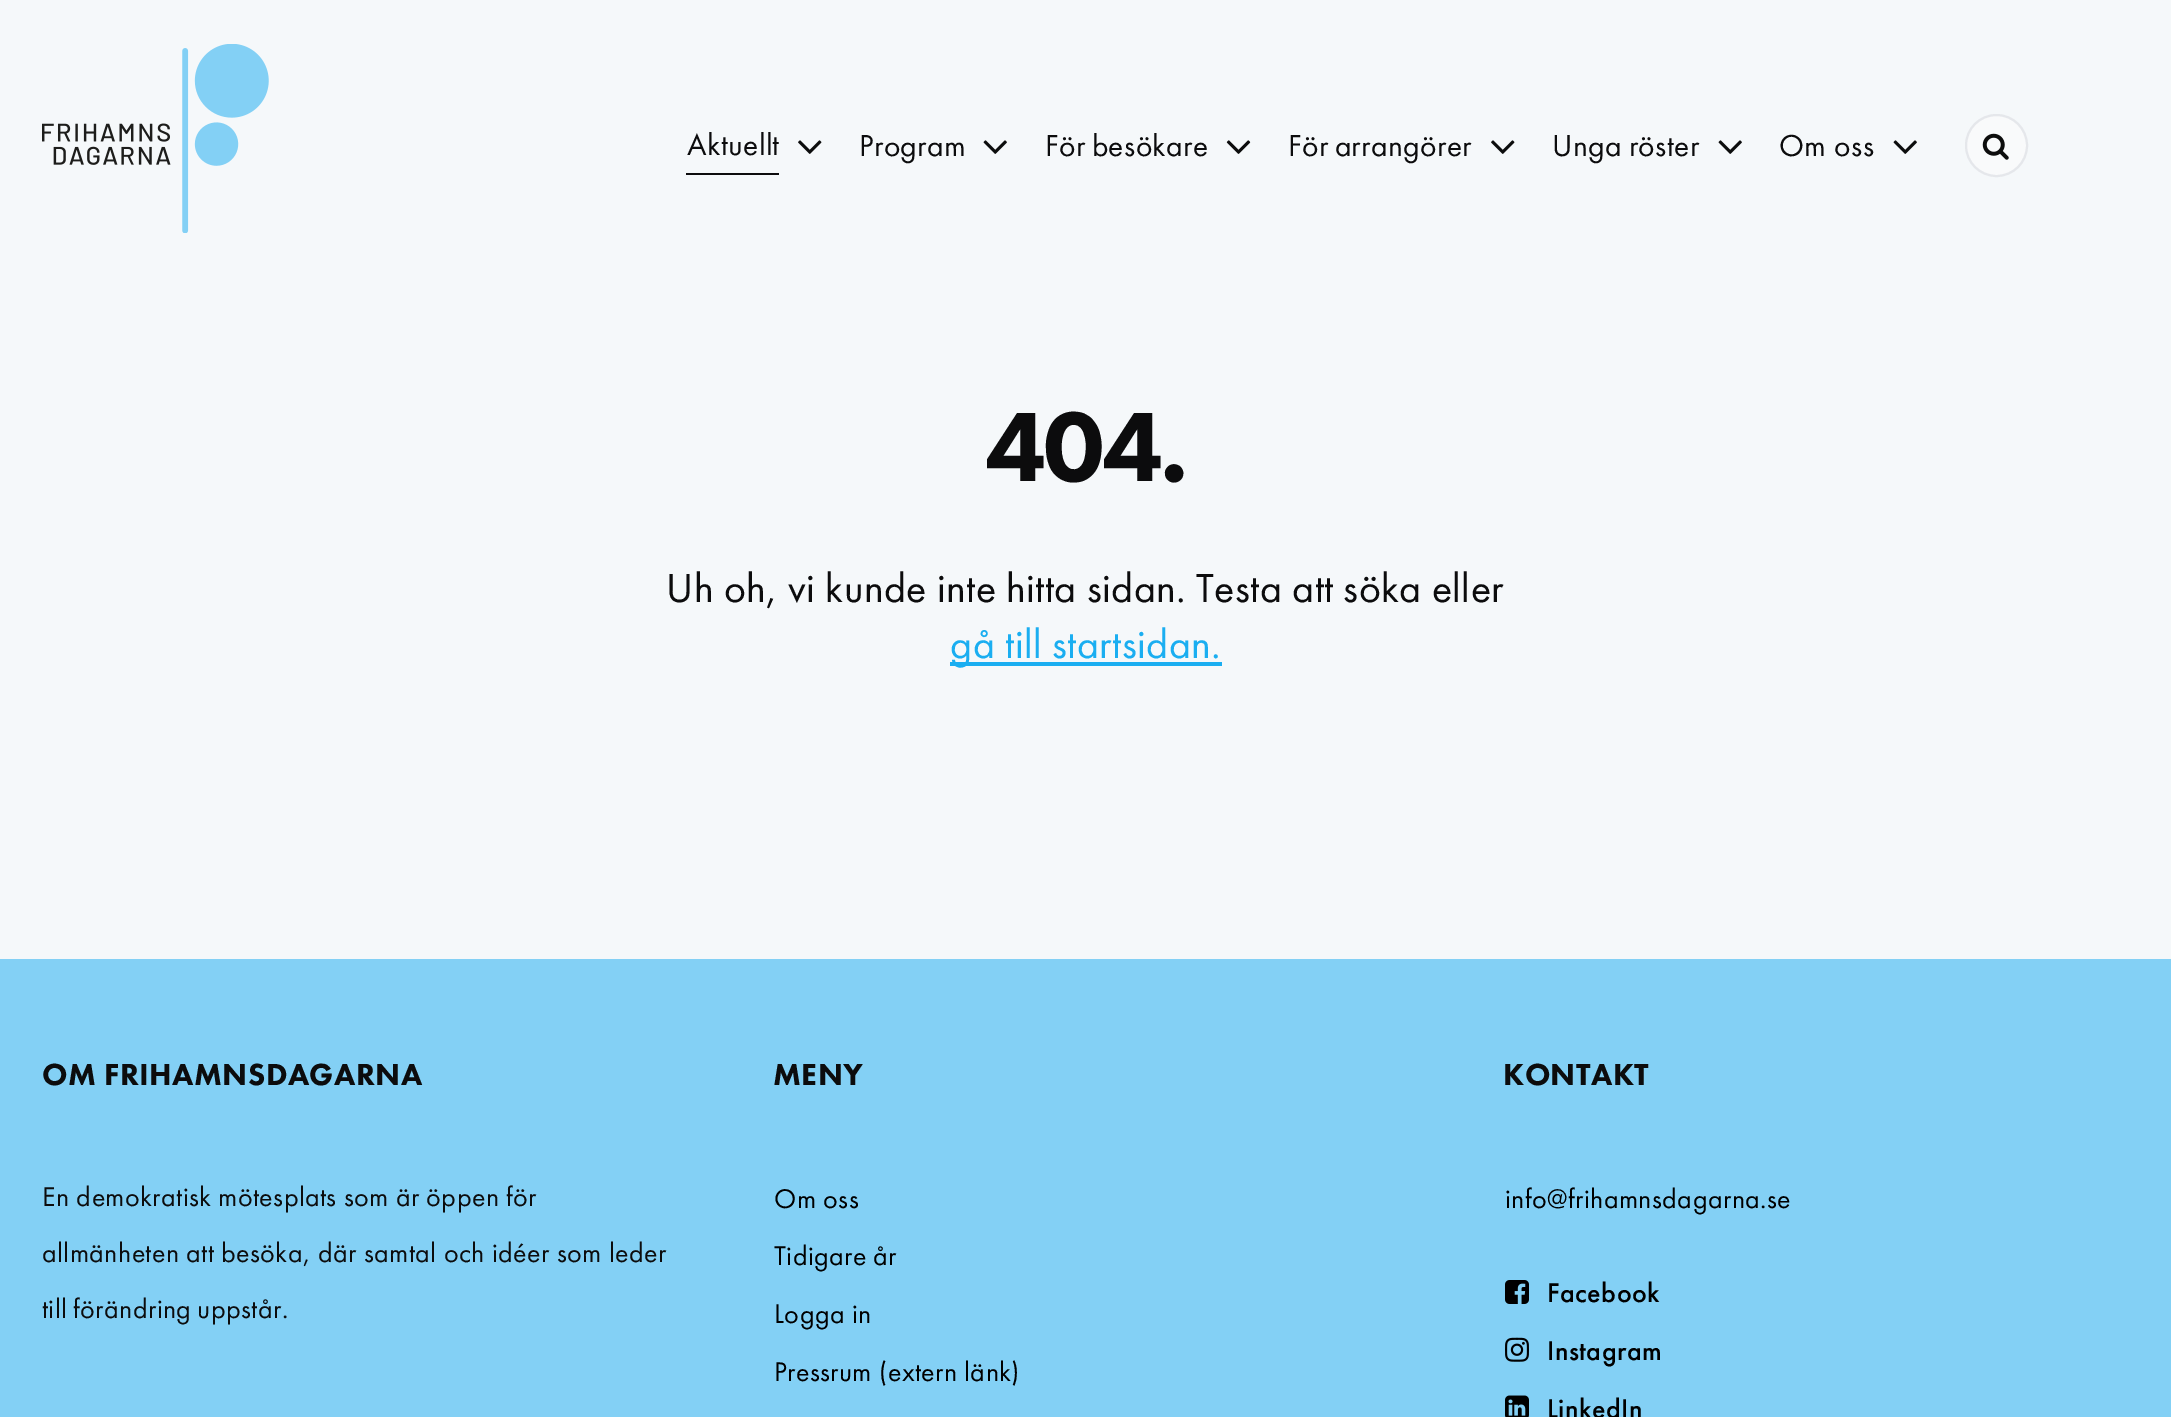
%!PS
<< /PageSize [2171 1417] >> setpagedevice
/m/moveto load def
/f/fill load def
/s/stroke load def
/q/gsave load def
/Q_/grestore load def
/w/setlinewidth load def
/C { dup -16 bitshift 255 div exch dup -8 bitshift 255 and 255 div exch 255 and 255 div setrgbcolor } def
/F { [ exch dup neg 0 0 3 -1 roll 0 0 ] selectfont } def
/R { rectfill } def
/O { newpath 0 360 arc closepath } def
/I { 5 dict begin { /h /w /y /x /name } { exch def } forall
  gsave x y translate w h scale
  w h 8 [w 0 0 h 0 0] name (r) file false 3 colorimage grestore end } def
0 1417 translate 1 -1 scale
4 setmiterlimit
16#F5F8FA C
0 0 2171 1417 R
(1.rgb) 42 44 227 189 I
16#0C0C0D C
686 173 93 2 R
/FuturaPT-Regular 31.5 F
687 155 m .42 0 (Aktuellt) ashow
(2.rgb) 798 140 24 14 I
859 156 m .42 0 (Program) ashow
(3.rgb) 983 140 24 14 I
1045 156 m -2 0 32 .42 0 (För besökare) awidthshow
(4.rgb) 1226 140 25 14 I
1288 156 m -2 0 32 .42 0 (För arrangörer) awidthshow
(2.rgb) 1491 140 24 14 I
1552 156 m -1 0 32 .42 0 (Unga röster) awidthshow
(3.rgb) 1718 140 24 14 I
1779 156 m .42 0 (Om oss) ashow
(3.rgb) 1893 140 24 14 I
16#F9FAFB C
1996.5 145.5 30.5 O q f Q_
16#E5E7EB C
2 w
s
(5.rgb) 1982 133 27 27 I
/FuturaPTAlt-Black 102 F
16#0C0C0D C
986 481 m -2.5 0 (404.) ashow
/FuturaPT-Regular 42 F
666 602 m -.25 0 32 .42 0 (Uh oh, vi kunde inte hitta sidan. Testa att söka eller) awidthshow
16#1AAEF1 C
950 662 272 4 R
950 658 m .42 0 (gå till startsidan.) ashow
16#83D0F5 C
0 959 2171 458 R
/FuturaPT-Black 31.5 F
16#0C0C0D C
42 1085 m .42 0 (OM FRIHAMNSDAGARNA) ashow
/FuturaPT-Regular 28 F
42 1206 m .42 0 (En demokratisk mötesplats som är öppen för) ashow
42 1262 m .42 0 (allmänheten att besöka, där samtal och idéer som leder) ashow
42 1318 m -1 0 32 .42 0 (till förändring uppstår.) awidthshow
/FuturaPT-Black 31.5 F
773 1085 m .42 0 (MENY) ashow
/FuturaPT-Regular 28 F
16#000000 C
774 1208 m .42 0 (Om oss) ashow
774 1265 m -1 0 32 .42 0 (Tidigare år) awidthshow
774 1323 m .42 0 (Logga in) ashow
774 1381 m .42 0 (Pressrum \(extern länk\)) ashow
/FuturaPT-Black 31.5 F
16#0C0C0D C
1503 1085 m .42 0 (KONTAKT) ashow
/FuturaPT-Regular 28 F
16#000000 C
1505 1208 m .42 0 (info@frihamnsdagarna.se) ashow
(6.rgb) 1505 1280 24 24 I
/FuturaPT-Medium 28 F
1547 1302 m .42 0 (Facebook) ashow
(7.rgb) 1505 1337 24 25 I
1547 1360 m .42 0 (Instagram) ashow
(8.rgb) 1505 1395 24 22 I
1547 1418 m .42 0 (LinkedIn) ashow
showpage
